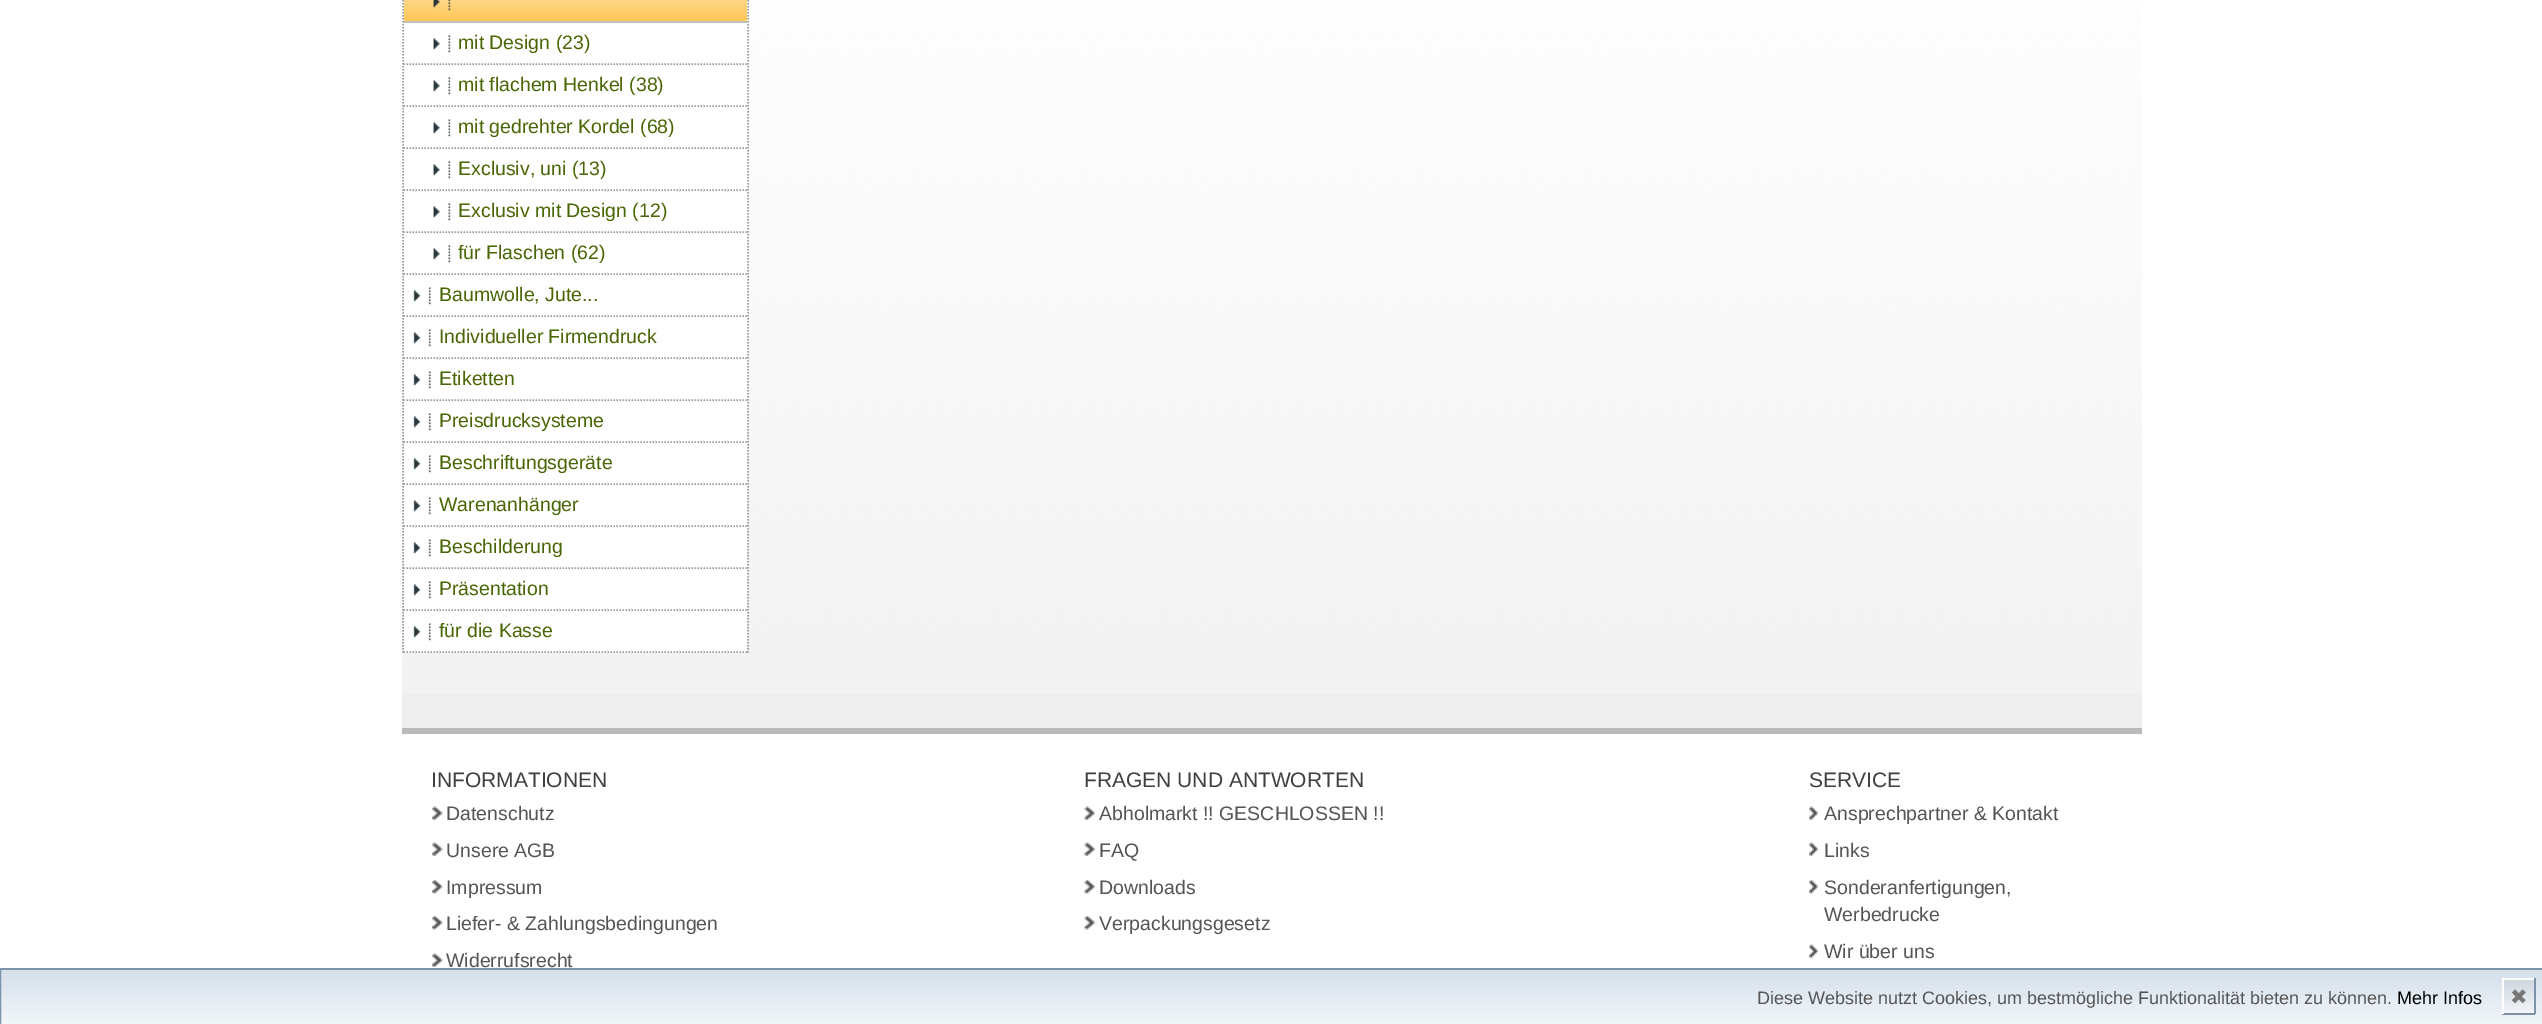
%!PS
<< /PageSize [2542 1024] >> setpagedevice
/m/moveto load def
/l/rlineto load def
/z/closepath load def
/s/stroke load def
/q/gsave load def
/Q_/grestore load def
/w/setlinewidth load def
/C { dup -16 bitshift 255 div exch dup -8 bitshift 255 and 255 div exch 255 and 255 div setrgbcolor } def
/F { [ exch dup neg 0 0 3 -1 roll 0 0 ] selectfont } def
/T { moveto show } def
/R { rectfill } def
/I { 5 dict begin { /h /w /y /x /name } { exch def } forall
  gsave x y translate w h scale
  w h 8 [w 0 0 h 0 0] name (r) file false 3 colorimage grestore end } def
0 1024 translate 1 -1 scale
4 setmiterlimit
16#FFFFFF C
0 0 2542 1024 R
16#EEEEEE C
402 694 1740 34 R
(1.rgb) 402 0 1740 694 I
16#999999 C
1.5 w
[1.5 1.5] 0 setdash
748 -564 m 0 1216.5 l s
403 -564 m 0 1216.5 l s
16#FFFFFF C
404 23 343 630 R
q 404 0 m 343 0 l 0 21 l -343 0 l z clip newpath
<< /ShadingType 2 /ColorSpace /DeviceRGB /Coords [575 -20 575 21] /Extend [true true] /Function << /FunctionType 2 /Domain [0 1] /C0 [1 .906 .718] /C1 [1 .78 .333] /N 1 >> >> shfill Q_
16#C0C0C0 C
404 21 343 2 R
(2.rgb) 433 0 18 11 I
16#999999 C
403.5 64 m 343.5 0 l s
(3.rgb) 433 35 18 18 I
/LiberationSans-Regular 19.5 F
16#496604 C
(mit Design \(23\)) 458 49 T
16#999999 C
403.5 106 m 343.5 0 l s
(3.rgb) 433 77 18 18 I
16#496604 C
(mit flachem Henkel \(38\)) 458 91 T
16#999999 C
403.5 148 m 343.5 0 l s
(3.rgb) 433 119 18 18 I
16#496604 C
(mit gedrehter Kordel \(68\)) 458 133 T
16#999999 C
403.5 190 m 343.5 0 l s
(3.rgb) 433 161 18 18 I
16#496604 C
(Exclusiv, uni \(13\)) 458 175 T
16#999999 C
403.5 232 m 343.5 0 l s
(3.rgb) 433 203 18 18 I
16#496604 C
(Exclusiv mit Design \(12\)) 458 217 T
16#999999 C
403.5 274 m 343.5 0 l s
(3.rgb) 433 245 18 18 I
16#496604 C
(für Flaschen \(62\)) 458 259 T
16#999999 C
403.5 316 m 343.5 0 l s
(4.rgb) 413 287 18 18 I
16#496604 C
(Baumwolle, Jute...) 439 301 T
16#999999 C
403.5 358 m 343.5 0 l s
(4.rgb) 413 329 18 18 I
16#496604 C
(Individueller Firmendruck) 439 343 T
16#999999 C
403.5 400 m 343.5 0 l s
(4.rgb) 413 371 18 18 I
16#496604 C
(Etiketten) 439 385 T
16#999999 C
403.5 442 m 343.5 0 l s
(4.rgb) 413 413 18 18 I
16#496604 C
(Preisdrucksysteme) 439 427 T
16#999999 C
403.5 484 m 343.5 0 l s
(4.rgb) 413 455 18 18 I
16#496604 C
(Beschriftungsgeräte) 439 469 T
16#999999 C
403.5 526 m 343.5 0 l s
(4.rgb) 413 497 18 18 I
16#496604 C
(Warenanhänger) 439 511 T
16#999999 C
403.5 568 m 343.5 0 l s
(4.rgb) 413 539 18 18 I
16#496604 C
(Beschilderung) 439 553 T
16#999999 C
403.5 610 m 343.5 0 l s
(4.rgb) 413 581 18 18 I
16#496604 C
(Präsentation) 439 595 T
16#999999 C
403.5 652 m 343.5 0 l s
(4.rgb) 413 623 18 18 I
16#496604 C
(für die Kasse) 439 637 T
16#BABABA C
402 728 1740 6 R
/LiberationSans-Regular 21 F
16#404040 C
(INFORMATIONEN) 431 787 T
(5.rgb) 432 806 11 14 I
/LiberationSans-Regular 19.5 F
16#555555 C
(Datenschutz) 446 820 T
(5.rgb) 432 842 11 14 I
(Unsere AGB) 446 857 T
(6.rgb) 432 880 11 14 I
(Impressum) 446 894 T
(6.rgb) 432 916 11 14 I
(Liefer- & Zahlungsbedingungen) 446 930 T
(5.rgb) 432 953 11 14 I
(Widerrufsrecht) 446 967 T
/LiberationSans-Regular 21 F
16#404040 C
(FRAGEN UND ANTWORTEN) 1084 787 T
(7.rgb) 1084 806 11 14 I
/LiberationSans-Regular 19.5 F
16#555555 C
(Abholmarkt !! GESCHLOSSEN !!) 1099 820 T
(7.rgb) 1084 842 11 14 I
(FAQ) 1099 857 T
(8.rgb) 1084 880 11 14 I
(Downloads) 1099 894 T
(8.rgb) 1084 916 11 14 I
(Verpackungsgesetz) 1099 930 T
/LiberationSans-Regular 21 F
16#404040 C
(SERVICE) 1809 787 T
(9.rgb) 1809 806 9 14 I
/LiberationSans-Regular 19.5 F
16#555555 C
(Ansprechpartner & Kontakt) 1824 820 T
(9.rgb) 1809 842 9 14 I
(Links) 1824 857 T
(10.rgb) 1809 880 9 14 I
(Sonderanfertigungen,) 1824 894 T
(Werbedrucke) 1824 921 T
(9.rgb) 1809 944 9 14 I
(Wir über uns) 1824 958 T
q 1 971 m 2541 0 l 0 53 l -2541 0 l z clip newpath
<< /ShadingType 2 /ColorSpace /DeviceRGB /Coords [1271 970 1271 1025] /Extend [true true] /Function << /FunctionType 2 /Domain [0 1] /C0 [.839 .878 .922] /C1 [.949 .965 .976] /N 1 >> >> shfill Q_
16#7B92A9 C
2 w
[] 0 setdash
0 969 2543 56 rectstroke
/LiberationSans-Regular 18 F
16#555555 C
(Diese Website nutzt Cookies, um bestmögliche Funktionalität bieten zu können.) 1757 1004 T
16#000000 C
(Mehr Infos) 2397 1004 T
q 2504 980 m 30 0 l 0 33 l -30 0 l z clip newpath
<< /ShadingType 2 /ColorSpace /DeviceRGB /Coords [2504 980 2504 1013] /Extend [true true] /Function << /FunctionType 2 /Domain [0 1] /C0 [.808 .839 .875] /C1 [.949 .965 .976] /N 1 >> >> shfill Q_
16#FFFFFF C
2502 978 33 2 R
16#7B92A9 C
2534 978 2 36 R
2502 1013 33 2 R
16#FFFFFF C
2502 978 2 36 R
/DejaVuSans-Regular 21 F
16#777777 C
(✖) 2510 1004 T
showpage
